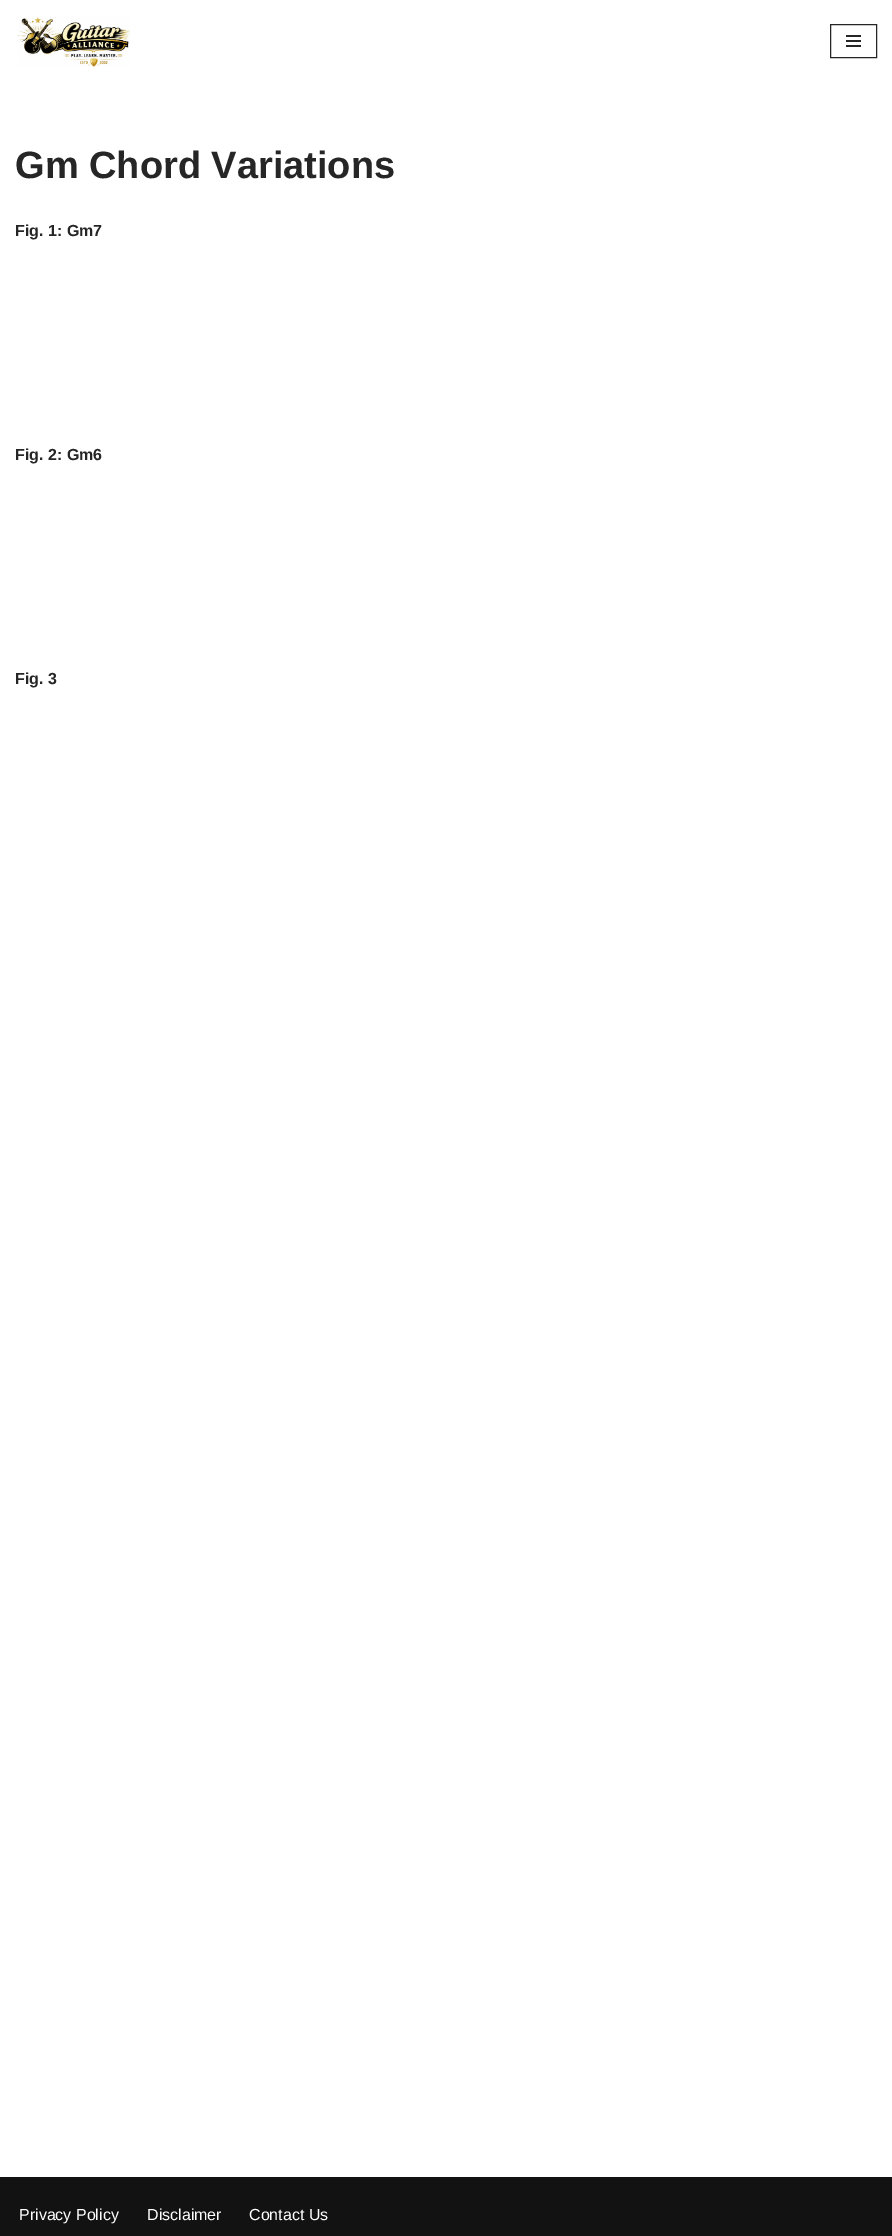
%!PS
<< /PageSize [892 2236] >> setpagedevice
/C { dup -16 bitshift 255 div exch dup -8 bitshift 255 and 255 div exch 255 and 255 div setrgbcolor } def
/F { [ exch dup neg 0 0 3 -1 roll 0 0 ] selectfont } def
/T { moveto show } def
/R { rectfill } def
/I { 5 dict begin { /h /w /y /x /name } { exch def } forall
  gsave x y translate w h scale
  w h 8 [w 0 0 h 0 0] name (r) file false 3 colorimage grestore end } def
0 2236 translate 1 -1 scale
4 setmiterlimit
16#FFFFFF C
0 0 892 2236 R
(1.rgb) 17 16 114 51 I
16#272626 C
830.5 24.5 46 33 rectstroke
846 35 15 2 R
846 40 15 2 R
846 45 15 2 R
/LiberationSans-Bold 38 F
(Gm Chord Variations) 15 178 T
/LiberationSans-Bold 16 F
(Fig. 1: Gm7) 15 236 T
(Fig. 2: Gm6) 15 460 T
(Fig. 3) 15 684 T
16#121212 C
0 2177 892 59 R
/LiberationSans-Regular 16 F
16#FFFFFF C
(Privacy Policy) 19 2220 T
(Disclaimer) 147 2220 T
(Contact Us) 249 2220 T
showpage
